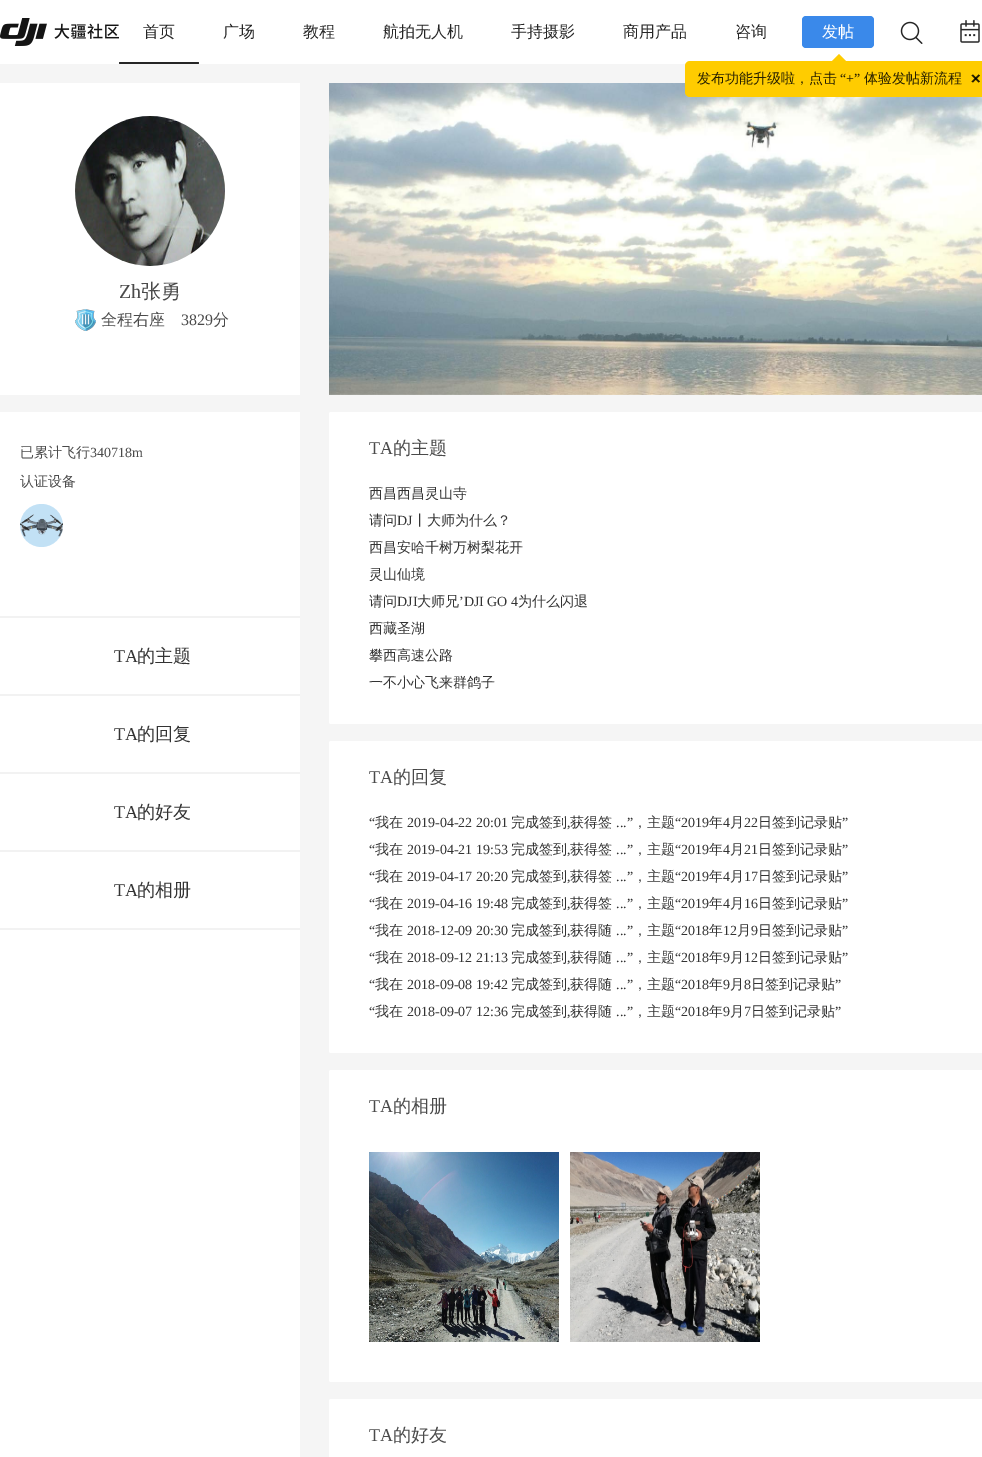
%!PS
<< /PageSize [982 1457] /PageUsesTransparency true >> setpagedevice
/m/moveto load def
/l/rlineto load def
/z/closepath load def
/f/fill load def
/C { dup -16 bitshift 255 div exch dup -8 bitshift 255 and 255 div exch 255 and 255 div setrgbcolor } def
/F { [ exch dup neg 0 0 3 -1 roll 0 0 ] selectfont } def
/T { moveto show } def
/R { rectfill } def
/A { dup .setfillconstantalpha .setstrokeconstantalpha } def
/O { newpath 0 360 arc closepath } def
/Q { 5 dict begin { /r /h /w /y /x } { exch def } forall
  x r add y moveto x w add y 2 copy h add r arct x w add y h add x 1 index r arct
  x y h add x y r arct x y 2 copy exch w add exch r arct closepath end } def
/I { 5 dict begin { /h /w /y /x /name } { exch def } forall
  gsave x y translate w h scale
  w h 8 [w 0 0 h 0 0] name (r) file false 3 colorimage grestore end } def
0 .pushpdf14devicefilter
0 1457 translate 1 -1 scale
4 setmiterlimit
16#F5F5F5 C
0 0 982 1457 R
16#FFFFFF C
0 0 982 64 R
(1.rgb) 0 18 119 28 I
/WenQuanYiZenHei-Medium 16 F
16#262626 C
(首页) 143 37 T
119 62 80 2 1 Q f
(广场) 223 37 T
(教程) 303 37 T
(航拍无人机) 383 37 T
(手持摄影) 511 37 T
(商用产品) 623 37 T
(咨询) 735 37 T
(2.rgb) 900 21 23 23 I
(3.rgb) 960 20 20 23 I
16#3A89EA C
802 16 72 32 4 Q f
16#FFFFFF C
(发帖) 822 37 T
16#FFCC00 C
847 62 m -16 0 l 8 -8 l z f
(6.rgb) 329 83 653 312 I
685 61 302 36 5 Q f
/WenQuanYiZenHei-Medium 14 F
16#261F00 C
(发布功能升级啦，点击) 697 83 T
/LiberationSerif-Regular 14 F
(“+”) 840 83 T
/WenQuanYiZenHei-Medium 14 F
(体验发帖新流程) 864 83 T
973 74.5 m 7 7 l -1.5 1 l -7 -7 l z f
0.85 A
16#000000 C
978.5 74.5 m 1.5 1 l -7 7 l -1.5 -1 l z f
1 A
16#FFFFFF C
0 83 300 312 R
(4.rgb) 75 116 150 150 I
/LiberationSerif-Regular 20 F
16#4A4A4A C
(Zh) 119 298 T
/WenQuanYiZenHei-Medium 20 F
(张勇) 141 298 T
(5.rgb) 75 309 21 22 I
/WenQuanYiZenHei-Medium 16 F
(全程右座) 101 325 T
/LiberationSerif-Regular 16 F
(3829) 181 325 T
/WenQuanYiZenHei-Medium 16 F
(分) 213 325 T
16#FFFFFF C
0 412 300 1045 R
16#F2F2F2 C
0 616 300 2 R
/WenQuanYiZenHei-Medium 14 F
16#4A4A4A C
(已累计飞行) 20 457 T
/LiberationSerif-Regular 14 F
(340718m) 90 457 T
/WenQuanYiZenHei-Medium 14 F
(认证设备) 20 486 T
16#C2E1F5 C
41.5 525.5 21.5 O f
(7.rgb) 20 514 43 23 I
16#F2F2F2 C
0 694 300 2 R
/LiberationSerif-Regular 18 F
16#333333 C
(TA) 114 662 T
/WenQuanYiZenHei-Medium 18 F
(的主题) 137 662 T
16#F2F2F2 C
0 772 300 2 R
/LiberationSerif-Regular 18 F
16#333333 C
(TA) 114 740 T
/WenQuanYiZenHei-Medium 18 F
(的回复) 137 740 T
16#F2F2F2 C
0 850 300 2 R
/LiberationSerif-Regular 18 F
16#333333 C
(TA) 114 818 T
/WenQuanYiZenHei-Medium 18 F
(的好友) 137 818 T
16#F2F2F2 C
0 928 300 2 R
/LiberationSerif-Regular 18 F
16#333333 C
(TA) 114 896 T
/WenQuanYiZenHei-Medium 18 F
(的相册) 137 896 T
16#FFFFFF C
329 412 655 312 2 Q f
/LiberationSerif-Regular 18 F
16#4A4A4A C
(TA) 369 454 T
/WenQuanYiZenHei-Medium 18 F
(的主题) 393 454 T
/WenQuanYiZenHei-Medium 14 F
16#333333 C
(西昌西昌灵山寺) 369 498 T
(请问) 369 525 T
/LiberationSerif-Regular 14 F
(DJ) 397 525 T
/WenQuanYiZenHei-Medium 14 F
(丨大师为什么？) 413 525 T
(西昌安哈千树万树梨花开) 369 552 T
(灵山仙境) 369 579 T
(请问) 369 606 T
/LiberationSerif-Regular 14 F
(DJI) 397 606 T
/WenQuanYiZenHei-Medium 14 F
(大师兄) 417 606 T
/LiberationSerif-Regular 14 F
(’DJI GO 4) 459 606 T
/WenQuanYiZenHei-Medium 14 F
(为什么闪退) 518 606 T
(西藏圣湖) 369 633 T
(攀西高速公路) 369 660 T
(一不小心飞来群鸽子) 369 687 T
16#FFFFFF C
329 741 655 312 2 Q f
/LiberationSerif-Regular 18 F
16#4A4A4A C
(TA) 369 783 T
/WenQuanYiZenHei-Medium 18 F
(的回复) 393 783 T
/LiberationSerif-Regular 14 F
16#333333 C
(“) 369 827 T
/WenQuanYiZenHei-Medium 14 F
(我在) 375 827 T
/LiberationSerif-Regular 14 F
(2019-04-22 20:01) 407 827 T
/WenQuanYiZenHei-Medium 14 F
(完成签到) 511 827 T
(获得签) 570 827 T
/LiberationSerif-Regular 14 F
(...”) 616 827 T
/WenQuanYiZenHei-Medium 14 F
(，主题) 633 827 T
/LiberationSerif-Regular 14 F
(“2019) 675 827 T
/WenQuanYiZenHei-Medium 14 F
(年) 709 827 T
/LiberationSerif-Regular 14 F
(4) 723 827 T
/WenQuanYiZenHei-Medium 14 F
(月) 730 827 T
/LiberationSerif-Regular 14 F
(22) 744 827 T
/WenQuanYiZenHei-Medium 14 F
(日签到记录贴) 758 827 T
/LiberationSerif-Regular 14 F
(”) 842 827 T
(,) 567 827 T
(“) 369 854 T
/WenQuanYiZenHei-Medium 14 F
(我在) 375 854 T
/LiberationSerif-Regular 14 F
(2019-04-21 19:53) 407 854 T
/WenQuanYiZenHei-Medium 14 F
(完成签到) 511 854 T
(获得签) 570 854 T
/LiberationSerif-Regular 14 F
(...”) 616 854 T
/WenQuanYiZenHei-Medium 14 F
(，主题) 633 854 T
/LiberationSerif-Regular 14 F
(“2019) 675 854 T
/WenQuanYiZenHei-Medium 14 F
(年) 709 854 T
/LiberationSerif-Regular 14 F
(4) 723 854 T
/WenQuanYiZenHei-Medium 14 F
(月) 730 854 T
/LiberationSerif-Regular 14 F
(21) 744 854 T
/WenQuanYiZenHei-Medium 14 F
(日签到记录贴) 758 854 T
/LiberationSerif-Regular 14 F
(”) 842 854 T
(,) 567 854 T
(“) 369 881 T
/WenQuanYiZenHei-Medium 14 F
(我在) 375 881 T
/LiberationSerif-Regular 14 F
(2019-04-17 20:20) 407 881 T
/WenQuanYiZenHei-Medium 14 F
(完成签到) 511 881 T
(获得签) 570 881 T
/LiberationSerif-Regular 14 F
(...”) 616 881 T
/WenQuanYiZenHei-Medium 14 F
(，主题) 633 881 T
/LiberationSerif-Regular 14 F
(“2019) 675 881 T
/WenQuanYiZenHei-Medium 14 F
(年) 709 881 T
/LiberationSerif-Regular 14 F
(4) 723 881 T
/WenQuanYiZenHei-Medium 14 F
(月) 730 881 T
/LiberationSerif-Regular 14 F
(17) 744 881 T
/WenQuanYiZenHei-Medium 14 F
(日签到记录贴) 758 881 T
/LiberationSerif-Regular 14 F
(”) 842 881 T
(,) 567 881 T
(“) 369 908 T
/WenQuanYiZenHei-Medium 14 F
(我在) 375 908 T
/LiberationSerif-Regular 14 F
(2019-04-16 19:48) 407 908 T
/WenQuanYiZenHei-Medium 14 F
(完成签到) 511 908 T
(获得签) 570 908 T
/LiberationSerif-Regular 14 F
(...”) 616 908 T
/WenQuanYiZenHei-Medium 14 F
(，主题) 633 908 T
/LiberationSerif-Regular 14 F
(“2019) 675 908 T
/WenQuanYiZenHei-Medium 14 F
(年) 709 908 T
/LiberationSerif-Regular 14 F
(4) 723 908 T
/WenQuanYiZenHei-Medium 14 F
(月) 730 908 T
/LiberationSerif-Regular 14 F
(16) 744 908 T
/WenQuanYiZenHei-Medium 14 F
(日签到记录贴) 758 908 T
/LiberationSerif-Regular 14 F
(”) 842 908 T
(,) 567 908 T
(“) 369 935 T
/WenQuanYiZenHei-Medium 14 F
(我在) 375 935 T
/LiberationSerif-Regular 14 F
(2018-12-09 20:30) 407 935 T
/WenQuanYiZenHei-Medium 14 F
(完成签到) 511 935 T
(获得随) 570 935 T
/LiberationSerif-Regular 14 F
(...”) 616 935 T
/WenQuanYiZenHei-Medium 14 F
(，主题) 633 935 T
/LiberationSerif-Regular 14 F
(“2018) 675 935 T
/WenQuanYiZenHei-Medium 14 F
(年) 709 935 T
/LiberationSerif-Regular 14 F
(12) 723 935 T
/WenQuanYiZenHei-Medium 14 F
(月) 737 935 T
/LiberationSerif-Regular 14 F
(9) 751 935 T
/WenQuanYiZenHei-Medium 14 F
(日签到记录贴) 758 935 T
/LiberationSerif-Regular 14 F
(”) 842 935 T
(,) 567 935 T
(“) 369 962 T
/WenQuanYiZenHei-Medium 14 F
(我在) 375 962 T
/LiberationSerif-Regular 14 F
(2018-09-12 21:13) 407 962 T
/WenQuanYiZenHei-Medium 14 F
(完成签到) 511 962 T
(获得随) 570 962 T
/LiberationSerif-Regular 14 F
(...”) 616 962 T
/WenQuanYiZenHei-Medium 14 F
(，主题) 633 962 T
/LiberationSerif-Regular 14 F
(“2018) 675 962 T
/WenQuanYiZenHei-Medium 14 F
(年) 709 962 T
/LiberationSerif-Regular 14 F
(9) 723 962 T
/WenQuanYiZenHei-Medium 14 F
(月) 730 962 T
/LiberationSerif-Regular 14 F
(12) 744 962 T
/WenQuanYiZenHei-Medium 14 F
(日签到记录贴) 758 962 T
/LiberationSerif-Regular 14 F
(”) 842 962 T
(,) 567 962 T
(“) 369 989 T
/WenQuanYiZenHei-Medium 14 F
(我在) 375 989 T
/LiberationSerif-Regular 14 F
(2018-09-08 19:42) 407 989 T
/WenQuanYiZenHei-Medium 14 F
(完成签到) 511 989 T
(获得随) 570 989 T
/LiberationSerif-Regular 14 F
(...”) 616 989 T
/WenQuanYiZenHei-Medium 14 F
(，主题) 633 989 T
/LiberationSerif-Regular 14 F
(“2018) 675 989 T
/WenQuanYiZenHei-Medium 14 F
(年) 709 989 T
/LiberationSerif-Regular 14 F
(9) 723 989 T
/WenQuanYiZenHei-Medium 14 F
(月) 730 989 T
/LiberationSerif-Regular 14 F
(8) 744 989 T
/WenQuanYiZenHei-Medium 14 F
(日签到记录贴) 751 989 T
/LiberationSerif-Regular 14 F
(”) 835 989 T
(,) 567 989 T
(“) 369 1016 T
/WenQuanYiZenHei-Medium 14 F
(我在) 375 1016 T
/LiberationSerif-Regular 14 F
(2018-09-07 12:36) 407 1016 T
/WenQuanYiZenHei-Medium 14 F
(完成签到) 511 1016 T
(获得随) 570 1016 T
/LiberationSerif-Regular 14 F
(...”) 616 1016 T
/WenQuanYiZenHei-Medium 14 F
(，主题) 633 1016 T
/LiberationSerif-Regular 14 F
(“2018) 675 1016 T
/WenQuanYiZenHei-Medium 14 F
(年) 709 1016 T
/LiberationSerif-Regular 14 F
(9) 723 1016 T
/WenQuanYiZenHei-Medium 14 F
(月) 730 1016 T
/LiberationSerif-Regular 14 F
(7) 744 1016 T
/WenQuanYiZenHei-Medium 14 F
(日签到记录贴) 751 1016 T
/LiberationSerif-Regular 14 F
(”) 835 1016 T
(,) 567 1016 T
16#FFFFFF C
329 1070 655 312 2 Q f
/LiberationSerif-Regular 18 F
16#4A4A4A C
(TA) 369 1112 T
/WenQuanYiZenHei-Medium 18 F
(的相册) 393 1112 T
(8.rgb) 369 1152 190 190 I
(9.rgb) 570 1152 190 190 I
16#FFFFFF C
329 1399 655 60 2 Q f
/LiberationSerif-Regular 18 F
16#4A4A4A C
(TA) 369 1441 T
/WenQuanYiZenHei-Medium 18 F
(的好友) 393 1441 T
.poppdf14devicefilter showpage
